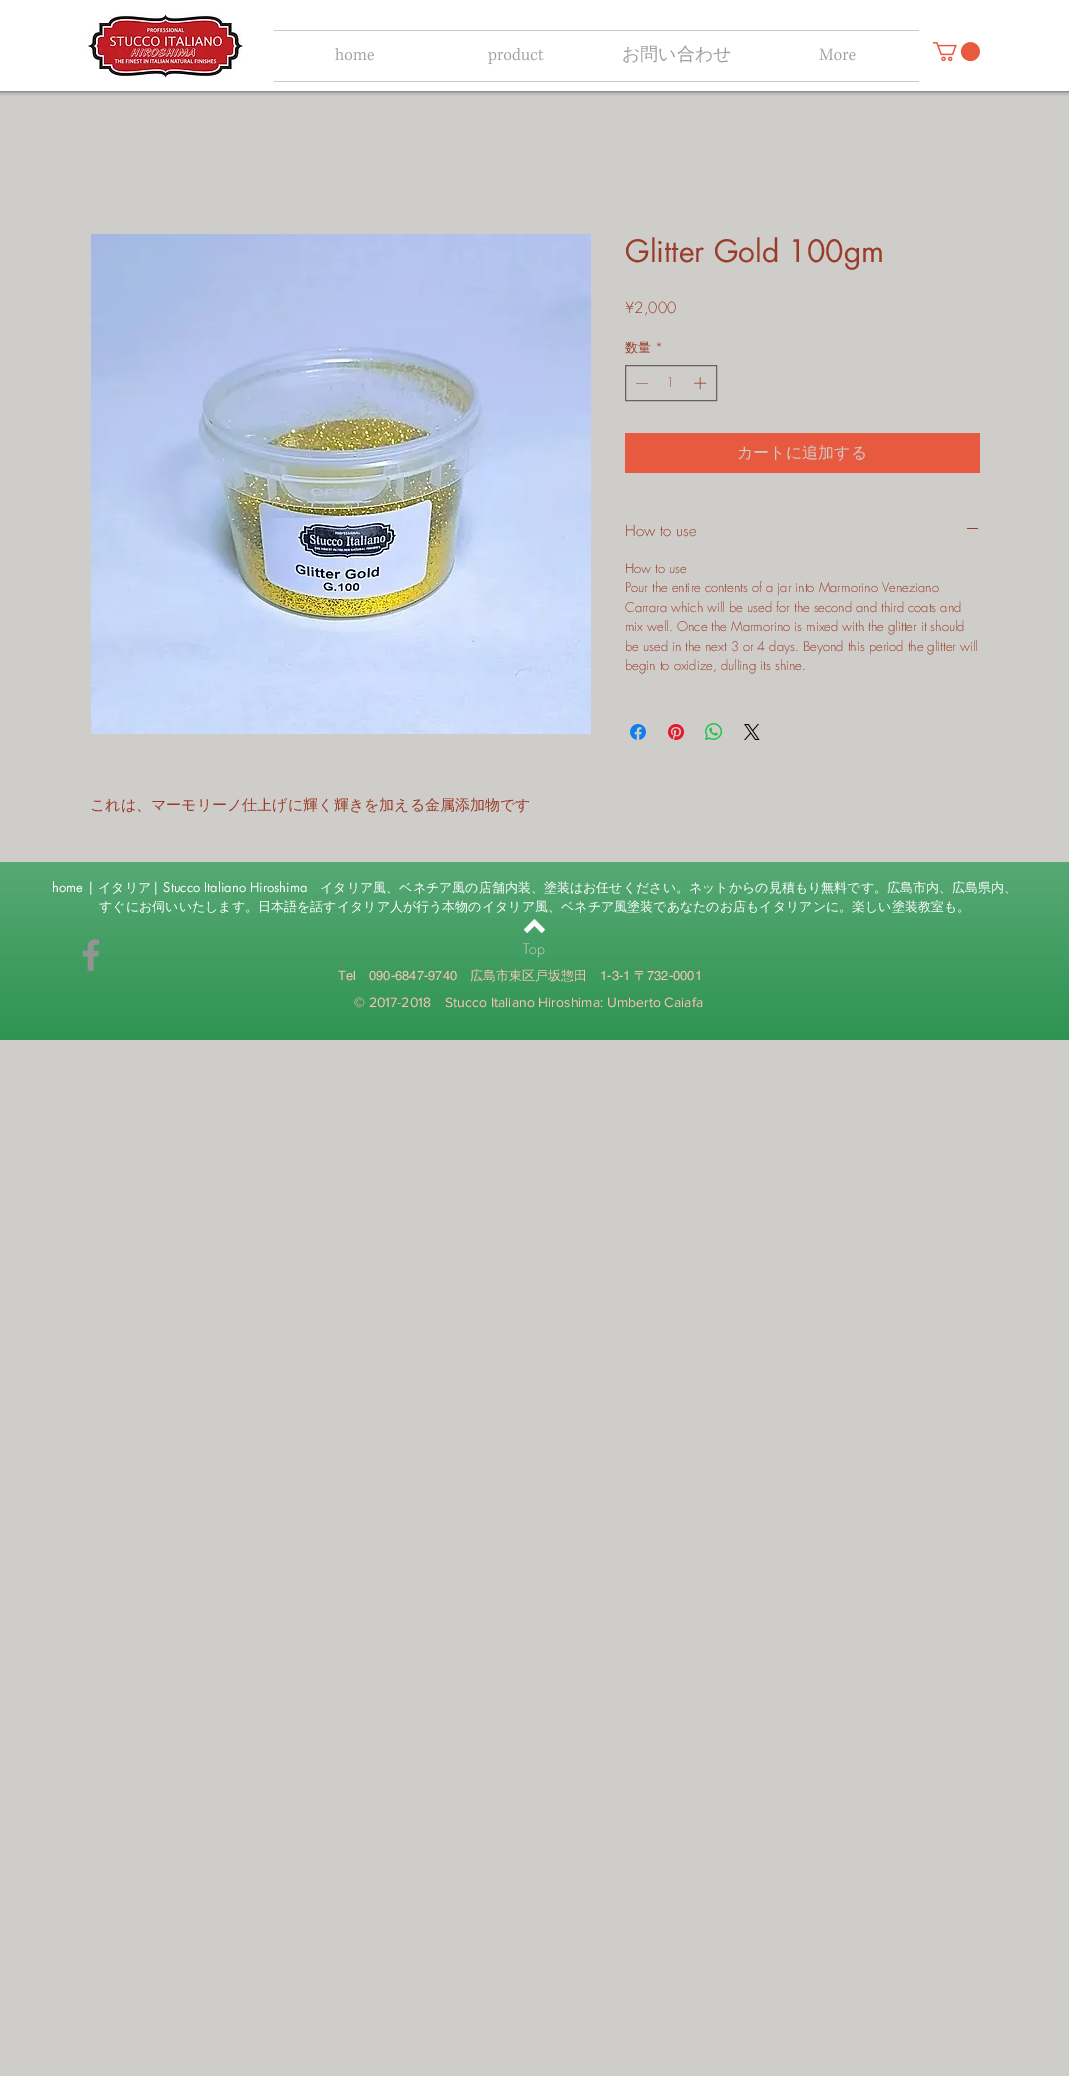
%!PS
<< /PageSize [1069 2076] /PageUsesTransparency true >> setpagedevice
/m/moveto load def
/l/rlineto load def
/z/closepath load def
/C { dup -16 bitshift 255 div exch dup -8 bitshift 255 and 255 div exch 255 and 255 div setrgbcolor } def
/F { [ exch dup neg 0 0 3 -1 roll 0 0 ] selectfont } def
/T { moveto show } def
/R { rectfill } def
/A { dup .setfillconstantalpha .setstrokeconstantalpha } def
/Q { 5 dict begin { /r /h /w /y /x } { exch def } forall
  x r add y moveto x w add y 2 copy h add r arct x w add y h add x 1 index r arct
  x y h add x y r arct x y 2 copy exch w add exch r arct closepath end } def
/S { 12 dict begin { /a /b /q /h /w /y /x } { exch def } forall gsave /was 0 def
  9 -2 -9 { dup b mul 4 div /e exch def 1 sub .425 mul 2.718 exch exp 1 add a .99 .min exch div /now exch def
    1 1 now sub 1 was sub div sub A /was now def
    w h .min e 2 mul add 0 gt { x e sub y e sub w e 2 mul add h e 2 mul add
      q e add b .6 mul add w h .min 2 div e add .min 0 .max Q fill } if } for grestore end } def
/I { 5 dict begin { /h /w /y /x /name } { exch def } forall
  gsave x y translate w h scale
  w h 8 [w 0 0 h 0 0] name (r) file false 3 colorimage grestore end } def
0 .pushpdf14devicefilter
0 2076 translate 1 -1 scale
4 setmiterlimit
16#CECDC9 C
0 0 1069 2076 R
16#000000 C
0 0 1069 91 0 2.5 .7 S
16#FFFFFF C
0 0 1069 91 R
(1.rgb) 86 14 158 64 I
16#CACACA C
274 30 645 1 R
274 81 645 1 R
(2.rgb) 335 48 39 13 I
(3.rgb) 488 48 56 17 I
/WenQuanYiZenHei-Medium 18 F
16#9E9E9E C
(お問い合わせ) 622 60 T
(4.rgb) 819 48 37 13 I
(5.rgb) 933 42 47 20 I
/futura-Regular 30 F
16#9A3C2B C
(Glitter Gold 100gm) 625 262 T
/futura-Light 15 F
(¥2,000) 625 313 T
/WenQuanYiZenHei-Medium 13 F
(数量) 625 352 T
/futura-Light 13 F
(*) 655 352 T
16#646461 C
625.5 365.5 91 35 rectstroke
16#9A3C2B C
648 383 m 0 .5 l -12 0 l 0 -.5 l z eofill
(1) 666 387 T
(6.rgb) 694 377 13 13 I
16#E85A40 C
625 433 355 40 R
/WenQuanYiZenHei-Medium 16 F
16#CECDC9 C
(カートに追加する) 737 458 T
/futura-Light 15 F
16#9A3C2B C
(How to use) 625 536 T
967 528 11 1 R
/futura-Light 13 F
(How to use) 625 573 T
(Pour the entire contents of a jar into Marmorino Veneziano) 625 592 T
(Carrara which will be used for the second and third coats and) 625 612 T
(mix well. Once the Marmorino is mixed with the glitter it should) 625 631 T
(be used in the next 3 or 4 days. Beyond this period the glitter will) 625 651 T
(begin to oxidize, dulling its shine.) 625 670 T
(7.rgb) 630 724 16 16 I
(8.rgb) 668 724 16 16 I
(9.rgb) 705 723 17 17 I
(10.rgb) 744 724 16 16 I
(11.rgb) 91 234 500 500 I
/WenQuanYiZenHei-Medium 15 F
(これは、マーモリーノ仕上げに輝く輝きを加える金属添加物です) 90 810 T
16#1C8A43 C
0 862 1069 178 R
(12.rgb) 0 862 1069 178 I
/futura-Regular 13 F
16#FFFFFF C
(home |) 52 892 T
/WenQuanYiZenHei-Medium 13 F
(イタリア) 98 892 T
/futura-Regular 13 F
(| Stucco Italiano Hiroshima) 152 892 T
/WenQuanYiZenHei-Medium 13 F
(イタリア風、ベネチア風の店舗内装、塗装はお任せください。ネットからの見積もり無料です。広島市内、広島県内、) 320 892 T
(すぐにお伺いいたします。日本語を話すイタリア人が行う本物のイタリア風、ベネチア風塗装であなたのお店もイタリアンに。楽しい塗装教室も。) 99 911 T
(13.rgb) 524 919 21 14 I
(14.rgb) 82 939 18 32 I
/futura-Light 14 F
16#CECDC9 C
(Top) 523 954 T
/helvetica-Regular 13 F
16#F7C4BB C
(Tel) 338 980 T
(090-6847-9740) 369 980 T
/WenQuanYiZenHei-Medium 13 F
(広島市東区戸坂惣田) 470 980 T
/helvetica-Regular 13 F
(1-3-1) 600 980 T
/WenQuanYiZenHei-Medium 13 F
(〒) 634 980 T
/helvetica-Regular 13 F
(732-0001) 647 980 T
/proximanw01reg-Regular 14 F
(© 2017-2018) 354 1007 T
(Stucco Italiano Hiroshima: Umberto Caiafa) 445 1007 T
.poppdf14devicefilter showpage
